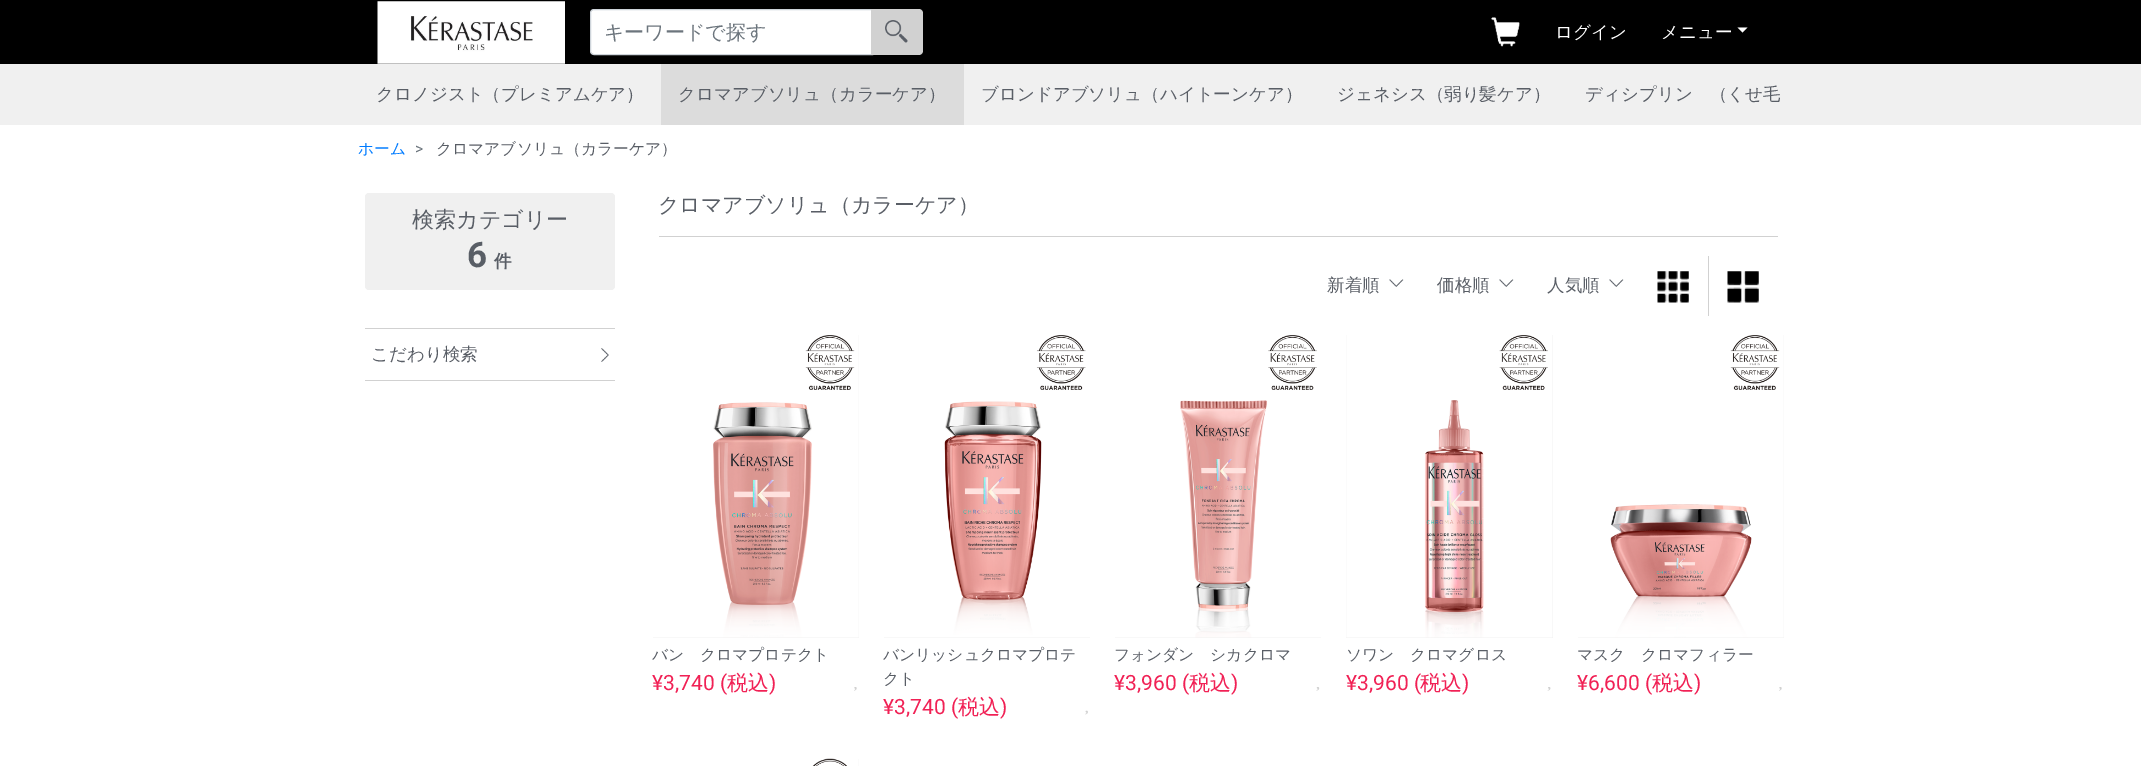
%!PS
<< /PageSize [2141 766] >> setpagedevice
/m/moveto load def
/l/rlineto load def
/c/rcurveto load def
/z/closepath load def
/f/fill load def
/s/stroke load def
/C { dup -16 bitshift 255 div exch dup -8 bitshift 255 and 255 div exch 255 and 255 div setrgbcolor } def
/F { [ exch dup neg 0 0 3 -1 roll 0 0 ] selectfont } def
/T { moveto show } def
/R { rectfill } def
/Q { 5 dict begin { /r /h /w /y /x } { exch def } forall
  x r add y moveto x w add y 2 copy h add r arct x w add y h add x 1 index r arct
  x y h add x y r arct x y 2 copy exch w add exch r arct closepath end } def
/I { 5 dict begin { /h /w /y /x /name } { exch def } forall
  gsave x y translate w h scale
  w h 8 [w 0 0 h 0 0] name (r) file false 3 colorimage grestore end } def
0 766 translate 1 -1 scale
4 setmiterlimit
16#FFFFFF C
0 0 2141 766 R
16#000000 C
0 0 2141 64 R
(1.rgb) 377 1 188 63 I
16#FFFFFF C
593.5 10 m 277.5 0 l 0 44 l -277.5 0 l -1.5 0 -2.5 -1 -2.5 -2.5 c 0 -39 l 0 -1.5 1 -2.5 2.5 -2.5 c z f
16#CED4DA C
594 9.5 m 278.5 0 l 0 45 l -278.5 0 l -2 0 -3.5 -1.5 -3.5 -3.5 c 0 -38 l 0 -2 1.5 -3.5 3.5 -3.5 c z s
/WenQuanYiZenHei-Medium 20 F
16#6C757D C
(キーワードで探す) 604 39 T
16#D1D1D1 C
871 9 m 48 0 l 2 0 4 2 4 4 c 0 38 l 0 2 -2 4 -4 4 c -48 0 l z f
(2.rgb) 885 20 23 23 I
(3.rgb) 1491 17 29 30 I
/WenQuanYiZenHei-Medium 17.5 F
16#FFFFFF C
(ログイン) 1555 38 T
(メニュー) 1661 38 T
1737.5 27.5 m 10 0 l -5 5 l z f
16#F0F0F0 C
0 64 2141 61 R
16#595E66 C
(クロノジスト（プレミアムケア）) 376 100 T
16#DCDCDC C
661 64 303 61 R
16#595E66 C
(クロマアブソリュ（カラーケア）) 678 100 T
(ブロンドアブソリュ（ハイトーンケア）) 981 100 T
(ジェネシス（弱り髪ケア）) 1337 100 T
(ディシプリン　（くせ毛) 1585 100 T
/WenQuanYiZenHei-Medium 15.75 F
16#007BFF C
(ホーム) 358 154 T
/Roboto-Regular 15.75 F
16#6C757D C
(>) 415 154 T
/WenQuanYiZenHei-Medium 15.75 F
16#595E66 C
(クロマアブソリュ（カラーケア）) 436 154 T
16#F0F0F0 C
365 193 250 97 4 Q f
/WenQuanYiZenHei-Medium 22 F
16#595E66 C
(検索カテゴリー) 412 227 T
/Roboto-Bold 35 F
(6) 467 267 T
/WenQuanYiZenHei-Bold 17.5 F
(件) 494 267 T
16#D1D1D1 C
365 328 250 1 R
365 380 250 1 R
/WenQuanYiZenHei-Medium 17.5 F
16#595E66 C
(こだわり検索) 371 360 T
(4.rgb) 601 348 8 14 I
16#D1D1D1 C
659 236 1119 1 R
/WenQuanYiZenHei-Medium 21 F
16#595E66 C
(クロマアブソリュ（カラーケア）) 658 212 T
/WenQuanYiZenHei-Medium 17.5 F
(新着順) 1327 291 T
(5.rgb) 1389 279 15 8 I
(価格順) 1437 291 T
(5.rgb) 1499 279 15 8 I
(人気順) 1547 291 T
(5.rgb) 1609 279 15 8 I
16#D1D1D1 C
1708 256 1 60 R
(6.rgb) 1657 271 32 32 I
(7.rgb) 1727 271 32 32 I
16#F0F0F0 C
653 335 206 303 R
(8.rgb) 653 335 206 303 I
/WenQuanYiZenHei-Medium 15.75 F
16#595E66 C
(バン　クロマプロテクト) 652 660 T
/Roboto-Regular 21 F
16#F12155 C
(¥3,740 \() 652 690 T
/WenQuanYiZenHei-Medium 21 F
(税込) 727 690 T
/Roboto-Regular 21 F
(\)) 769 690 T
(9.rgb) 854 687 3 4 I
16#F0F0F0 C
884 637 206 1 R
(10.rgb) 884 335 206 303 I
/WenQuanYiZenHei-Medium 15.75 F
16#595E66 C
(バンリッシュクロマプロテ) 883 660 T
(クト) 883 684 T
/Roboto-Regular 21 F
16#F12155 C
(¥3,740 \() 883 714 T
/WenQuanYiZenHei-Medium 21 F
(税込) 958 714 T
/Roboto-Regular 21 F
(\)) 1000 714 T
(11.rgb) 1085 710 3 5 I
16#F0F0F0 C
1115 637 206 1 R
(12.rgb) 1115 335 206 303 I
/WenQuanYiZenHei-Medium 15.75 F
16#595E66 C
(フォンダン　シカクロマ) 1114 660 T
/Roboto-Regular 21 F
16#F12155 C
(¥3,960 \() 1114 690 T
/WenQuanYiZenHei-Medium 21 F
(税込) 1189 690 T
/Roboto-Regular 21 F
(\)) 1231 690 T
(13.rgb) 1316 687 4 4 I
16#F0F0F0 C
1346 335 207 303 R
(14.rgb) 1346 335 207 303 I
/WenQuanYiZenHei-Medium 15.75 F
16#595E66 C
(ソワン　クロマグロス) 1346 660 T
/Roboto-Regular 21 F
16#F12155 C
(¥3,960 \() 1346 690 T
/WenQuanYiZenHei-Medium 21 F
(税込) 1420 690 T
/Roboto-Regular 21 F
(\)) 1462 690 T
(15.rgb) 1547 687 4 4 I
16#F0F0F0 C
1578 335 206 303 R
(16.rgb) 1578 335 206 303 I
/WenQuanYiZenHei-Medium 15.75 F
16#595E66 C
(マスク　クロマフィラー) 1577 660 T
/Roboto-Regular 21 F
16#F12155 C
(¥6,600 \() 1577 690 T
/WenQuanYiZenHei-Medium 21 F
(税込) 1652 690 T
/Roboto-Regular 21 F
(\)) 1694 690 T
(9.rgb) 1779 687 3 4 I
(17.rgb) 653 758 206 8 I
showpage
